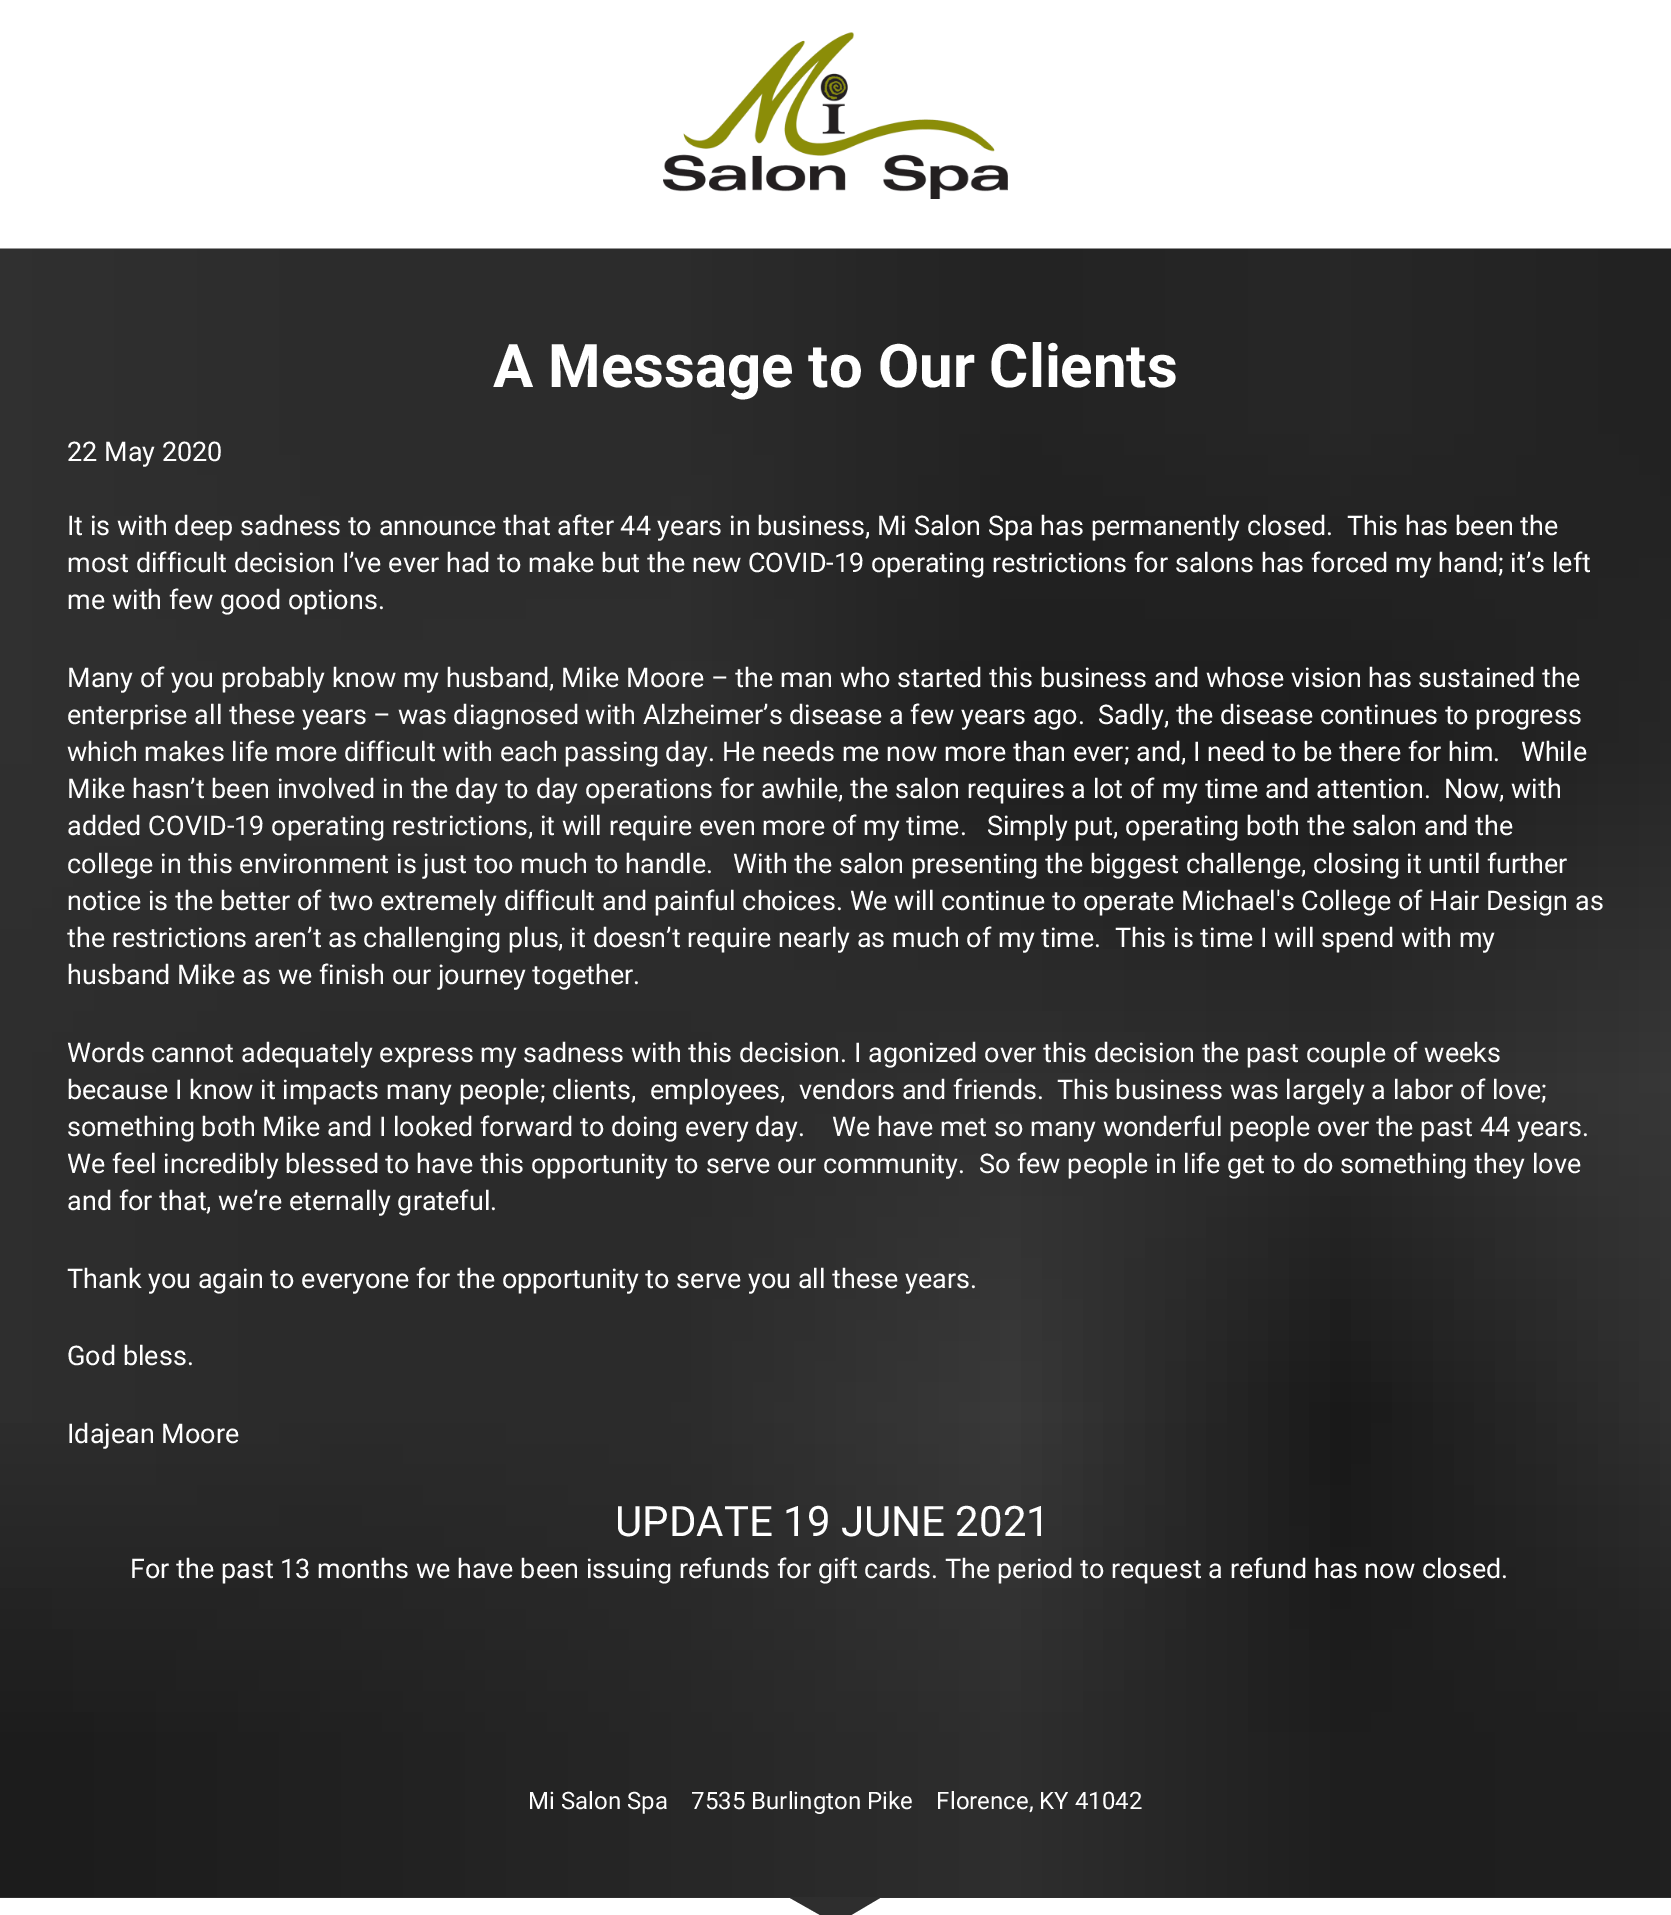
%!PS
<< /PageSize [1671 1915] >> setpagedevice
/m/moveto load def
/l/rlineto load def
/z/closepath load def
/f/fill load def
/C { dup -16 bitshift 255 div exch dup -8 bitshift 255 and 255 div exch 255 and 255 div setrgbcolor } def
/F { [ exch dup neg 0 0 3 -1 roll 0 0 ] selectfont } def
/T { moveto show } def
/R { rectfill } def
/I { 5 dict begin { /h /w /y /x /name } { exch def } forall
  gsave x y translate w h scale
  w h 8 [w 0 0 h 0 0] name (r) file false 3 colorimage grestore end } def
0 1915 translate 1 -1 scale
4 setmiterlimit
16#FFFFFF C
0 0 1671 1915 R
(1.rgb) 663 32 345 167 I
16#2E2E2E C
0 1897 1671 1 R
(2.rgb) 0 248 1671 1649 I
/Roboto-Bold 60 F
16#FFFFFF C
(A Message to Our Clients) 493 387 T
/Roboto-Regular 27 F
(22 May 2020) 67 461 T
(It is with deep sadness to announce that after 44 years in business, Mi Salon Spa has permanently closed.  This has been the) 67 535 T
(most difficult decision I’ve ever had to make but the new COVID-19 operating restrictions for salons has forced my hand; it’s left) 67 572 T
(me with few good options.) 67 609 T
(Many of you probably know my husband, Mike Moore – the man who started this business and whose vision has sustained the) 67 687 T
(enterprise all these years – was diagnosed with Alzheimer’s disease a few years ago.  Sadly, the disease continues to progress) 67 724 T
(which makes life more difficult with each passing day. He needs me now more than ever; and, I need to be there for him.   While) 67 761 T
(Mike hasn’t been involved in the day to day operations for awhile, the salon requires a lot of my time and attention.  Now, with) 67 798 T
(added COVID-19 operating restrictions, it will require even more of my time.   Simply put, operating both the salon and the) 67 835 T
(college in this environment is just too much to handle.   With the salon presenting the biggest challenge, closing it until further) 67 873 T
(notice is the better of two extremely difficult and painful choices. We will continue to operate Michael's College of Hair Design as) 67 910 T
(the restrictions aren’t as challenging plus, it doesn’t require nearly as much of my time.  This is time I will spend with my) 67 947 T
(husband Mike as we finish our journey together.) 67 984 T
(Words cannot adequately express my sadness with this decision. I agonized over this decision the past couple of weeks) 67 1062 T
(because I know it impacts many people; clients,  employees,  vendors and friends.  This business was largely a labor of love;) 67 1099 T
(something both Mike and I looked forward to doing every day.    We have met so many wonderful people over the past 44 years.) 67 1136 T
(We feel incredibly blessed to have this opportunity to serve our community.  So few people in life get to do something they love) 67 1173 T
(and for that, we’re eternally grateful.) 67 1210 T
(Thank you again to everyone for the opportunity to serve you all these years.) 67 1288 T
(God bless.) 67 1365 T
(Idajean Moore) 67 1443 T
/Roboto-Regular 42 F
(UPDATE 19 JUNE 2021) 615 1536 T
/Roboto-Regular 27 F
(For the past 13 months we have been issuing refunds for gift cards. The period to request a refund has now closed.) 130 1578 T
/Roboto-Regular 24 F
(Mi Salon Spa    7535 Burlington Pike    Florence, KY 41042) 528 1809 T
16#2E2E2E C
790 1898 m 90 0 l -44 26 l z f
showpage
